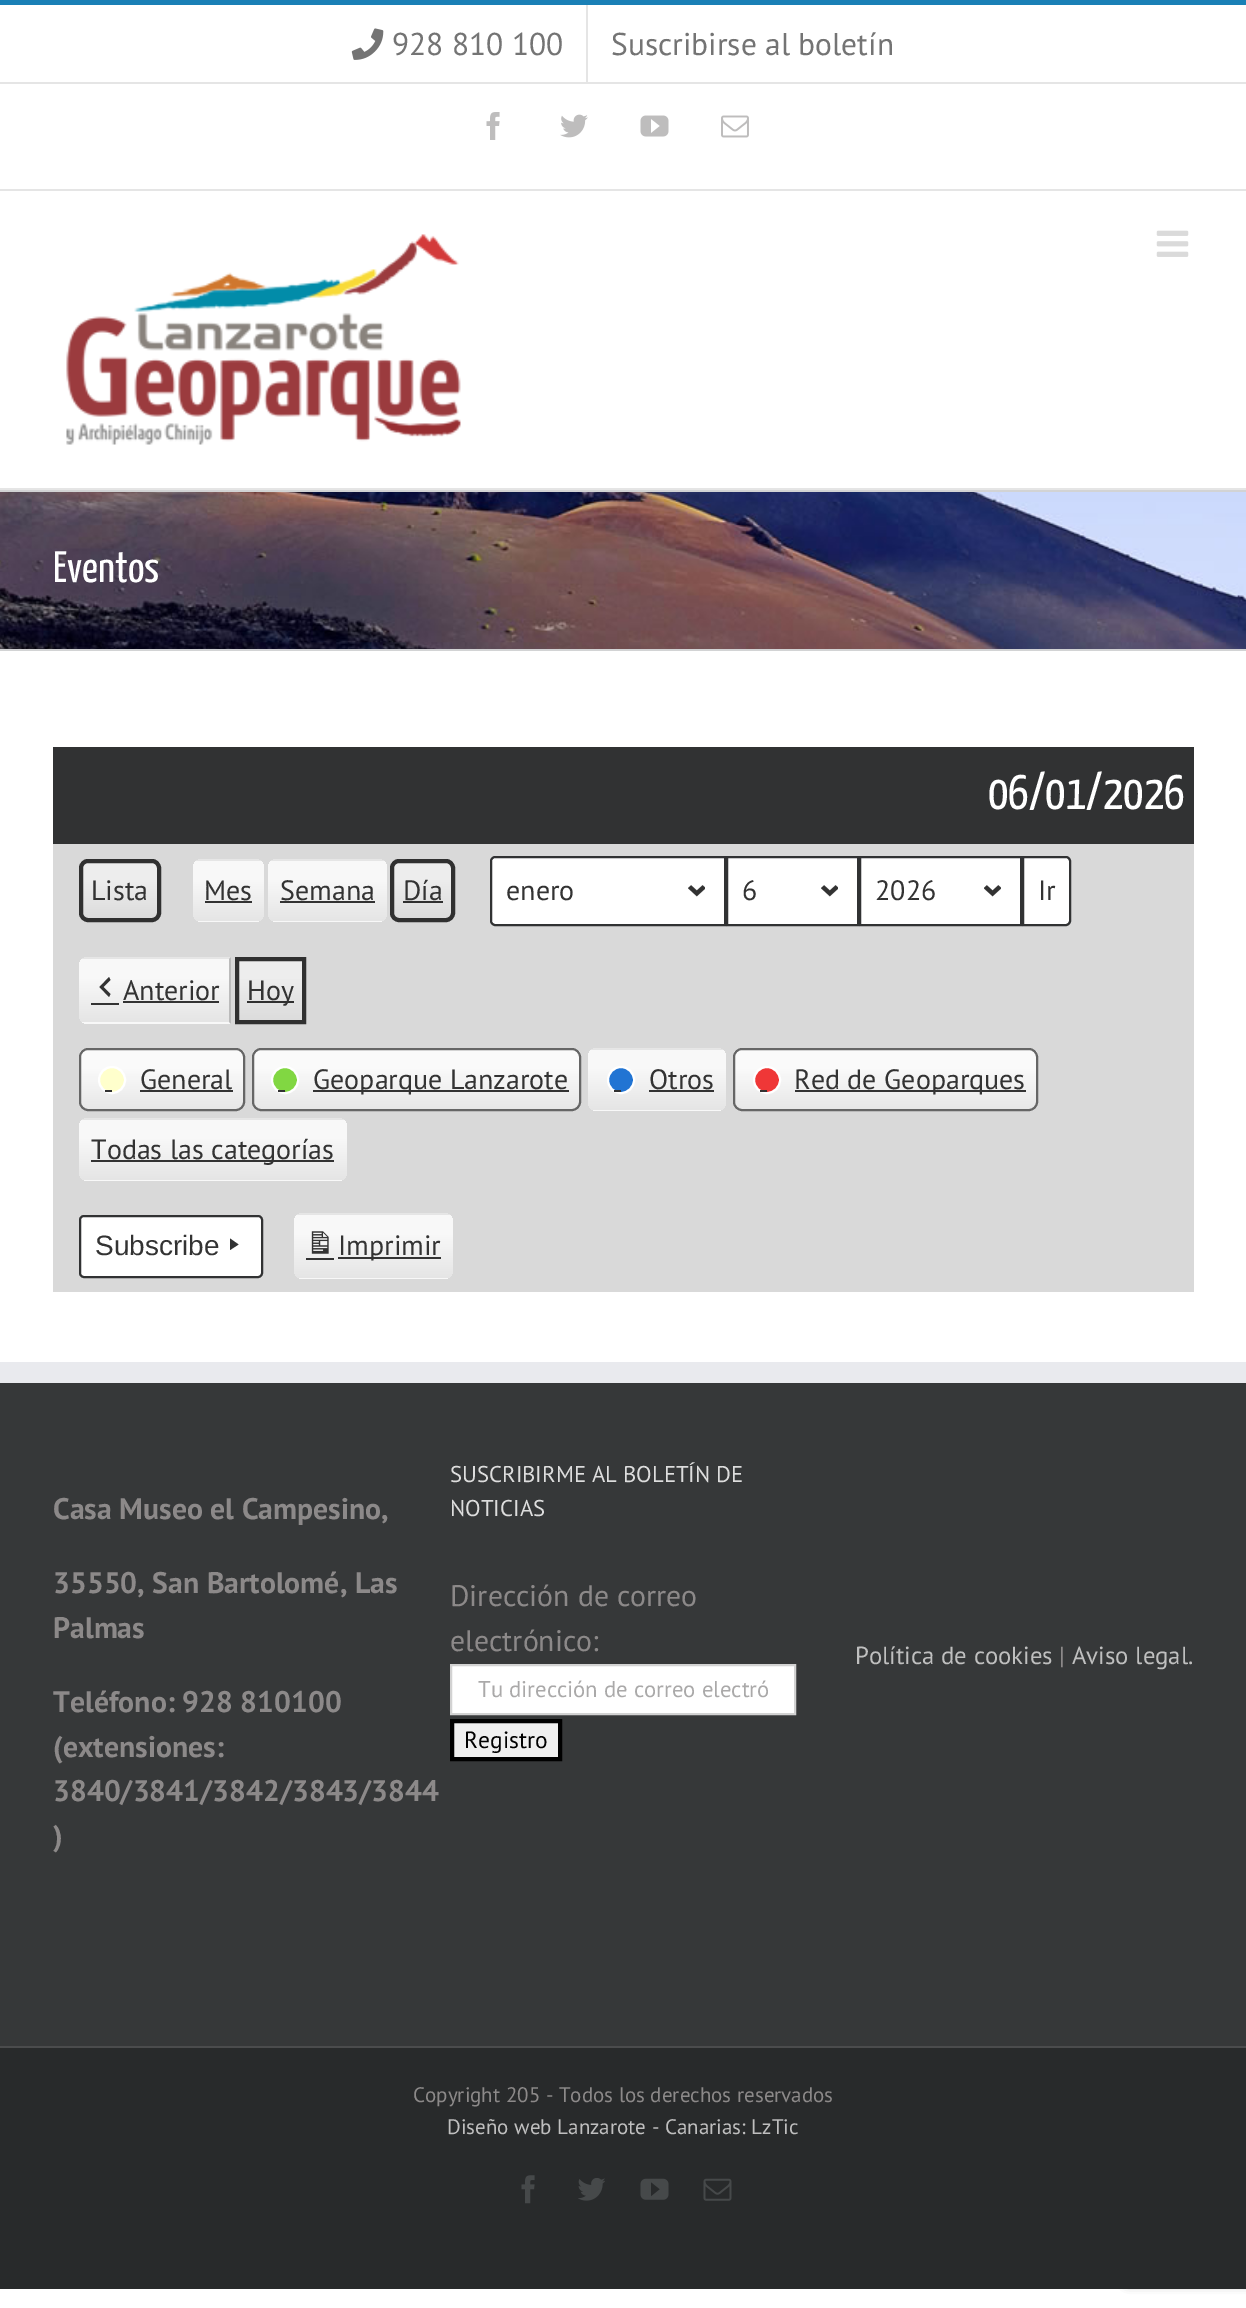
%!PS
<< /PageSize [1246 2308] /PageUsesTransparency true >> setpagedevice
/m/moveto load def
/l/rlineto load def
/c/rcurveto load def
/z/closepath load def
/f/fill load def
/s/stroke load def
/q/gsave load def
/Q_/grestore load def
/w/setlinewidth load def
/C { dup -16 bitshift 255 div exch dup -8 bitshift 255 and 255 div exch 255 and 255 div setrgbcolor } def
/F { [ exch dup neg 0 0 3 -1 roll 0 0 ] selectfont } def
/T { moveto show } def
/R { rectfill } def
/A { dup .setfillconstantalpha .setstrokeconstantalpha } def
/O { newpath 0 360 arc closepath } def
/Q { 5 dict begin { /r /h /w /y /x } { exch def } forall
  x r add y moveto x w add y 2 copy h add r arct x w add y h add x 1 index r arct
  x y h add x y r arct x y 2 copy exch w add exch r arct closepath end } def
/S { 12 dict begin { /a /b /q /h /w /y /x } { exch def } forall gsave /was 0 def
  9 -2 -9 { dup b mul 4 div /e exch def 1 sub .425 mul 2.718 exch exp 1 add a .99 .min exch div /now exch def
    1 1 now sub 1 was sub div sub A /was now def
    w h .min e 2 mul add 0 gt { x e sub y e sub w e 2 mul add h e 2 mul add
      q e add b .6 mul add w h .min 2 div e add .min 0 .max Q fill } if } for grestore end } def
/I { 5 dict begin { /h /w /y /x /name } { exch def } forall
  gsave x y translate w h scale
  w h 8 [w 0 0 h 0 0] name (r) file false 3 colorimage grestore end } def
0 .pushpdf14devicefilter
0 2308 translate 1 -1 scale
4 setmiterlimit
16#FFFFFF C
0 0 1246 2308 R
16#1A80B6 C
0 0 1246 5 R
16#E5E5E5 C
0 189 1246 2 R
0 82 1246 2 R
(1.rgb) 351 28 33 32 I
/PTSans-Regular 31.5 F
16#747474 C
(928 810 100) 392 55 T
16#E5E5E5 C
586 5 2 77 R
16#747474 C
(Suscribirse al boletín) 611 55 T
(2.rgb) 486 112 14 28 I
(3.rgb) 560 114 28 24 I
(4.rgb) 640 115 29 22 I
(5.rgb) 721 115 28 23 I
16#E5E5E5 C
0 488 1246 2 R
(6.rgb) 66 234 395 211 I
(7.rgb) 1156 230 33 27 I
(8.rgb) 0 492 1246 157 I
16#D2D3D4 C
0 490 1246 2 R
0 649 1246 2 R
/YanoneKaffeesatz-ExtraLight 44 F
16#FFFFFF C
(Eventos) 53 582 T
16#313233 C
53 747 1141 97 R
/YanoneKaffeesatz-ExtraLight 49 F
16#FFFFFF C
(06/01/2026) 988 809 T
16#D9D9D9 C
53 844 1141 448 R
q
79 859 82 63 9 Q clip newpath
q 79 861 m 82 0 l 0 60 l -82 0 l z clip newpath
<< /ShadingType 2 /ColorSpace /DeviceRGB /Coords [120 921 120 861] /Extend [true true] /Function << /FunctionType 3 /Domain [0 1] /Functions [<< /FunctionType 2 /Domain [0 1] /C0 [.859 .859 .859] /C1 [.929 .929 .929] /N 1 >> << /FunctionType 2 /Domain [0 1] /C0 [.929 .929 .929] /C1 [.929 .929 .929] /N 1 >>] /Bounds [.7] /Encode [0 1 0 1] >> >> shfill Q_
Q_
16#303030 C
4 w
81 861 78 59 7 Q s
/PTSans-Regular 28 F
16#333333 C
(Lista) 91 900 T
q
193 859 71 63 9 Q clip newpath
q 193 859 m 71 0 l 0 2 l -71 0 l z clip newpath
<< /ShadingType 2 /ColorSpace /DeviceRGB /Coords [228 861 228 802] /Extend [true true] /Function << /FunctionType 3 /Domain [0 1] /Functions [<< /FunctionType 2 /Domain [0 1] /C0 [.898 .898 .898] /C1 [.973 .973 .973] /N 1 >> << /FunctionType 2 /Domain [0 1] /C0 [.973 .973 .973] /C1 [.973 .973 .973] /N 1 >>] /Bounds [.7] /Encode [0 1 0 1] >> >> shfill Q_
q 193 861 m 71 0 l 0 60 l -71 0 l z clip newpath
<< /ShadingType 2 /ColorSpace /DeviceRGB /Coords [228 921 228 861] /Extend [true true] /Function << /FunctionType 3 /Domain [0 1] /Functions [<< /FunctionType 2 /Domain [0 1] /C0 [.898 .898 .898] /C1 [.973 .973 .973] /N 1 >> << /FunctionType 2 /Domain [0 1] /C0 [.973 .973 .973] /C1 [.973 .973 .973] /N 1 >>] /Bounds [.7] /Encode [0 1 0 1] >> >> shfill Q_
q 193 921 m 71 0 l 0 1 l -71 0 l z clip newpath
<< /ShadingType 2 /ColorSpace /DeviceRGB /Coords [228 980 228 921] /Extend [true true] /Function << /FunctionType 3 /Domain [0 1] /Functions [<< /FunctionType 2 /Domain [0 1] /C0 [.898 .898 .898] /C1 [.973 .973 .973] /N 1 >> << /FunctionType 2 /Domain [0 1] /C0 [.973 .973 .973] /C1 [.973 .973 .973] /N 1 >>] /Bounds [.7] /Encode [0 1 0 1] >> >> shfill Q_
Q_
(Mes) 204 900 T
205 901 47 2 R
q
268 859 119 63 9 Q clip newpath
q 268 859 m 119 0 l 0 2 l -119 0 l z clip newpath
<< /ShadingType 2 /ColorSpace /DeviceRGB /Coords [327 861 327 802] /Extend [true true] /Function << /FunctionType 3 /Domain [0 1] /Functions [<< /FunctionType 2 /Domain [0 1] /C0 [.898 .898 .898] /C1 [.973 .973 .973] /N 1 >> << /FunctionType 2 /Domain [0 1] /C0 [.973 .973 .973] /C1 [.973 .973 .973] /N 1 >>] /Bounds [.7] /Encode [0 1 0 1] >> >> shfill Q_
q 268 861 m 119 0 l 0 60 l -119 0 l z clip newpath
<< /ShadingType 2 /ColorSpace /DeviceRGB /Coords [327 921 327 861] /Extend [true true] /Function << /FunctionType 3 /Domain [0 1] /Functions [<< /FunctionType 2 /Domain [0 1] /C0 [.898 .898 .898] /C1 [.973 .973 .973] /N 1 >> << /FunctionType 2 /Domain [0 1] /C0 [.973 .973 .973] /C1 [.973 .973 .973] /N 1 >>] /Bounds [.7] /Encode [0 1 0 1] >> >> shfill Q_
q 268 921 m 119 0 l 0 1 l -119 0 l z clip newpath
<< /ShadingType 2 /ColorSpace /DeviceRGB /Coords [327 980 327 921] /Extend [true true] /Function << /FunctionType 3 /Domain [0 1] /Functions [<< /FunctionType 2 /Domain [0 1] /C0 [.898 .898 .898] /C1 [.973 .973 .973] /N 1 >> << /FunctionType 2 /Domain [0 1] /C0 [.973 .973 .973] /C1 [.973 .973 .973] /N 1 >>] /Bounds [.7] /Encode [0 1 0 1] >> >> shfill Q_
Q_
(Semana) 280 900 T
280 901 95 2 R
q
390 859 65 63 9 Q clip newpath
q 390 861 m 65 0 l 0 60 l -65 0 l z clip newpath
<< /ShadingType 2 /ColorSpace /DeviceRGB /Coords [423 921 423 861] /Extend [true true] /Function << /FunctionType 3 /Domain [0 1] /Functions [<< /FunctionType 2 /Domain [0 1] /C0 [.859 .859 .859] /C1 [.929 .929 .929] /N 1 >> << /FunctionType 2 /Domain [0 1] /C0 [.929 .929 .929] /C1 [.929 .929 .929] /N 1 >>] /Bounds [.7] /Encode [0 1 0 1] >> >> shfill Q_
Q_
16#303030 C
403 901 40 2 R
392 861 61 59 7 Q s
16#333333 C
(Día) 403 900 T
16#FFFFFF C
495 856 m 231 0 l 0 70 l -231 0 l -3 0 -5 -2 -5 -5 c 0 -60 l 0 -3 2 -5 5 -5 c z f
(9.rgb) 688 885 17 12 I
16#313233 C
2 w
495 857 m 230 0 l 0 68 l -230 0 l -2 0 -4 -2 -4 -4 c 0 -60 l 0 -2 2 -4 4 -4 c z s
16#333333 C
(enero) 506 900 T
16#FFFFFF C
728 858 129 66 R
(9.rgb) 821 885 17 12 I
16#313233 C
727 857 131 68 rectstroke
16#333333 C
(6) 742 900 T
16#FFFFFF C
861 858 159 66 R
(10.rgb) 984 885 17 12 I
16#313233 C
860 857 161 68 rectstroke
16#333333 C
(2026) 875 900 T
16#FFFFFF C
1023 857 m 43 0 l 2 0 4 2 4 4 c 0 60 l 0 2 -2 4 -4 4 c -43 0 l z q f Q_
16#313233 C
s
16#333333 C
(Ir) 1038 900 T
q
88 957 m 143 0 l 0 67 l -143 0 l -5 0 -9 -4 -9 -9 c 0 -49 l 0 -5 4 -9 9 -9 c z clip newpath
q 79 957 m 152 0 l 0 2 l -152 0 l z clip newpath
<< /ShadingType 2 /ColorSpace /DeviceRGB /Coords [155 959 155 896] /Extend [true true] /Function << /FunctionType 3 /Domain [0 1] /Functions [<< /FunctionType 2 /Domain [0 1] /C0 [.898 .898 .898] /C1 [.973 .973 .973] /N 1 >> << /FunctionType 2 /Domain [0 1] /C0 [.973 .973 .973] /C1 [.973 .973 .973] /N 1 >>] /Bounds [.7] /Encode [0 1 0 1] >> >> shfill Q_
q 79 959 m 150 0 l 0 63 l -150 0 l z clip newpath
<< /ShadingType 2 /ColorSpace /DeviceRGB /Coords [155 1022 155 959] /Extend [true true] /Function << /FunctionType 3 /Domain [0 1] /Functions [<< /FunctionType 2 /Domain [0 1] /C0 [.898 .898 .898] /C1 [.973 .973 .973] /N 1 >> << /FunctionType 2 /Domain [0 1] /C0 [.973 .973 .973] /C1 [.973 .973 .973] /N 1 >>] /Bounds [.7] /Encode [0 1 0 1] >> >> shfill Q_
q 79 1022 m 152 0 l 0 2 l -152 0 l z clip newpath
<< /ShadingType 2 /ColorSpace /DeviceRGB /Coords [155 1085 155 1022] /Extend [true true] /Function << /FunctionType 3 /Domain [0 1] /Functions [<< /FunctionType 2 /Domain [0 1] /C0 [.898 .898 .898] /C1 [.973 .973 .973] /N 1 >> << /FunctionType 2 /Domain [0 1] /C0 [.973 .973 .973] /C1 [.973 .973 .973] /N 1 >>] /Bounds [.7] /Encode [0 1 0 1] >> >> shfill Q_
Q_
16#BBBBBB C
231 957 m -2 2 l 0 63 l 2 2 l z f
16#333333 C
110.5 980 m -7 7 l 7 7 l -1.5 3 l -9.5 -10 l 9.5 -10 l z f
91 1003 28 2 R
(Anterior) 123 1000 T
123 1001 96 2 R
q 239 961 m 63 0 l 0 59 l -63 0 l z clip newpath
<< /ShadingType 2 /ColorSpace /DeviceRGB /Coords [270 1022 270 959] /Extend [true true] /Function << /FunctionType 3 /Domain [0 1] /Functions [<< /FunctionType 2 /Domain [0 1] /C0 [.859 .859 .859] /C1 [.929 .929 .929] /N 1 >> << /FunctionType 2 /Domain [0 1] /C0 [.929 .929 .929] /C1 [.929 .929 .929] /N 1 >>] /Bounds [.7] /Encode [0 1 0 1] >> >> shfill Q_
16#303030 C
247 1001 47 2 R
4 w
237 959 67 63 rectstroke
16#333333 C
(Hoy) 247 1000 T
16#FFFFFF C
79 1048 166 63 9 Q f
q
79 1048 166 63 9 Q clip newpath
0.95 A
q 79 1050 m 166 0 l 0 60 l -166 0 l z clip newpath
<< /ShadingType 2 /ColorSpace /DeviceRGB /Coords [162 1110 162 1050] /Extend [true true] /Function << /FunctionType 3 /Domain [0 1] /Functions [<< /FunctionType 2 /Domain [0 1] /C0 [.902 .902 .902] /C1 [.98 .98 .98] /N 1 >> << /FunctionType 2 /Domain [0 1] /C0 [.98 .98 .98] /C1 [.98 .98 .98] /N 1 >>] /Bounds [.7] /Encode [0 1 0 1] >> >> shfill Q_
Q_
16#666666 C
2 w
80 1049 164 61 8 Q s
16#FFFFCC C
112 1080 13 O q f Q_
16#FFFFFF C
s
16#333333 C
105 1090 7 2 R
(General) 140 1089 T
140 1090 93 2 R
16#FFFFFF C
252 1048 329 63 9 Q f
q
252 1048 329 63 9 Q clip newpath
0.95 A
q 252 1050 m 329 0 l 0 60 l -329 0 l z clip newpath
<< /ShadingType 2 /ColorSpace /DeviceRGB /Coords [417 1110 417 1050] /Extend [true true] /Function << /FunctionType 3 /Domain [0 1] /Functions [<< /FunctionType 2 /Domain [0 1] /C0 [.902 .902 .902] /C1 [.98 .98 .98] /N 1 >> << /FunctionType 2 /Domain [0 1] /C0 [.98 .98 .98] /C1 [.98 .98 .98] /N 1 >>] /Bounds [.7] /Encode [0 1 0 1] >> >> shfill Q_
Q_
16#666666 C
253 1049 327 61 8 Q s
16#81D742 C
285 1080 13 O q f Q_
16#FFFFFF C
s
16#333333 C
278 1090 7 2 R
313 1090 256 2 R
(Geoparque Lanzarote) 313 1089 T
q
588 1048 138 63 9 Q clip newpath
q 588 1048 m 138 0 l 0 2 l -138 0 l z clip newpath
<< /ShadingType 2 /ColorSpace /DeviceRGB /Coords [657 1050 657 991] /Extend [true true] /Function << /FunctionType 3 /Domain [0 1] /Functions [<< /FunctionType 2 /Domain [0 1] /C0 [.898 .898 .898] /C1 [.973 .973 .973] /N 1 >> << /FunctionType 2 /Domain [0 1] /C0 [.973 .973 .973] /C1 [.973 .973 .973] /N 1 >>] /Bounds [.7] /Encode [0 1 0 1] >> >> shfill Q_
q 588 1050 m 138 0 l 0 60 l -138 0 l z clip newpath
<< /ShadingType 2 /ColorSpace /DeviceRGB /Coords [657 1110 657 1050] /Extend [true true] /Function << /FunctionType 3 /Domain [0 1] /Functions [<< /FunctionType 2 /Domain [0 1] /C0 [.898 .898 .898] /C1 [.973 .973 .973] /N 1 >> << /FunctionType 2 /Domain [0 1] /C0 [.973 .973 .973] /C1 [.973 .973 .973] /N 1 >>] /Bounds [.7] /Encode [0 1 0 1] >> >> shfill Q_
q 588 1110 m 138 0 l 0 1 l -138 0 l z clip newpath
<< /ShadingType 2 /ColorSpace /DeviceRGB /Coords [657 1169 657 1110] /Extend [true true] /Function << /FunctionType 3 /Domain [0 1] /Functions [<< /FunctionType 2 /Domain [0 1] /C0 [.898 .898 .898] /C1 [.973 .973 .973] /N 1 >> << /FunctionType 2 /Domain [0 1] /C0 [.973 .973 .973] /C1 [.973 .973 .973] /N 1 >>] /Bounds [.7] /Encode [0 1 0 1] >> >> shfill Q_
Q_
16#2174D3 C
621 1080 13 O q f Q_
16#FFFFFF C
s
16#333333 C
614 1090 7 2 R
(Otros) 649 1089 T
649 1090 65 2 R
16#FFFFFF C
733 1048 305 63 9 Q f
q
733 1048 305 63 9 Q clip newpath
0.95 A
q 733 1050 m 305 0 l 0 60 l -305 0 l z clip newpath
<< /ShadingType 2 /ColorSpace /DeviceRGB /Coords [886 1110 886 1050] /Extend [true true] /Function << /FunctionType 3 /Domain [0 1] /Functions [<< /FunctionType 2 /Domain [0 1] /C0 [.902 .902 .902] /C1 [.98 .98 .98] /N 1 >> << /FunctionType 2 /Domain [0 1] /C0 [.98 .98 .98] /C1 [.98 .98 .98] /N 1 >>] /Bounds [.7] /Encode [0 1 0 1] >> >> shfill Q_
Q_
16#666666 C
734 1049 303 61 8 Q s
16#EF3737 C
767 1080 13 O q f Q_
16#FFFFFF C
s
16#333333 C
760 1090 7 2 R
795 1090 231 2 R
(Red de Geoparques) 794 1089 T
q
79 1118 268 63 9 Q clip newpath
q 79 1118 m 268 0 l 0 2 l -268 0 l z clip newpath
<< /ShadingType 2 /ColorSpace /DeviceRGB /Coords [213 1120 213 1061] /Extend [true true] /Function << /FunctionType 3 /Domain [0 1] /Functions [<< /FunctionType 2 /Domain [0 1] /C0 [.898 .898 .898] /C1 [.973 .973 .973] /N 1 >> << /FunctionType 2 /Domain [0 1] /C0 [.973 .973 .973] /C1 [.973 .973 .973] /N 1 >>] /Bounds [.7] /Encode [0 1 0 1] >> >> shfill Q_
q 79 1120 m 268 0 l 0 60 l -268 0 l z clip newpath
<< /ShadingType 2 /ColorSpace /DeviceRGB /Coords [213 1180 213 1120] /Extend [true true] /Function << /FunctionType 3 /Domain [0 1] /Functions [<< /FunctionType 2 /Domain [0 1] /C0 [.898 .898 .898] /C1 [.973 .973 .973] /N 1 >> << /FunctionType 2 /Domain [0 1] /C0 [.973 .973 .973] /C1 [.973 .973 .973] /N 1 >>] /Bounds [.7] /Encode [0 1 0 1] >> >> shfill Q_
q 79 1180 m 268 0 l 0 1 l -268 0 l z clip newpath
<< /ShadingType 2 /ColorSpace /DeviceRGB /Coords [213 1239 213 1180] /Extend [true true] /Function << /FunctionType 3 /Domain [0 1] /Functions [<< /FunctionType 2 /Domain [0 1] /C0 [.898 .898 .898] /C1 [.973 .973 .973] /N 1 >> << /FunctionType 2 /Domain [0 1] /C0 [.973 .973 .973] /C1 [.973 .973 .973] /N 1 >>] /Bounds [.7] /Encode [0 1 0 1] >> >> shfill Q_
Q_
91 1160 243 2 R
(Todas las categorías) 91 1159 T
16#FFFFFF C
80 1216 182 61 4 Q q f Q_
16#313233 C
s
/LiberationSans-Regular 28 F
16#333333 C
(Subscribe) 95 1255 T
16#313233 C
230 1238.5 m 8.5 6 l -8.5 5.5 l z f
q
294 1213 159 66 9 Q clip newpath
q 294 1213 m 159 0 l 0 2 l -159 0 l z clip newpath
<< /ShadingType 2 /ColorSpace /DeviceRGB /Coords [374 1215 374 1152] /Extend [true true] /Function << /FunctionType 3 /Domain [0 1] /Functions [<< /FunctionType 2 /Domain [0 1] /C0 [.898 .898 .898] /C1 [.973 .973 .973] /N 1 >> << /FunctionType 2 /Domain [0 1] /C0 [.973 .973 .973] /C1 [.973 .973 .973] /N 1 >>] /Bounds [.7] /Encode [0 1 0 1] >> >> shfill Q_
q 294 1215 m 159 0 l 0 63 l -159 0 l z clip newpath
<< /ShadingType 2 /ColorSpace /DeviceRGB /Coords [374 1278 374 1215] /Extend [true true] /Function << /FunctionType 3 /Domain [0 1] /Functions [<< /FunctionType 2 /Domain [0 1] /C0 [.898 .898 .898] /C1 [.973 .973 .973] /N 1 >> << /FunctionType 2 /Domain [0 1] /C0 [.973 .973 .973] /C1 [.973 .973 .973] /N 1 >>] /Bounds [.7] /Encode [0 1 0 1] >> >> shfill Q_
q 294 1278 m 159 0 l 0 1 l -159 0 l z clip newpath
<< /ShadingType 2 /ColorSpace /DeviceRGB /Coords [374 1341 374 1278] /Extend [true true] /Function << /FunctionType 3 /Domain [0 1] /Functions [<< /FunctionType 2 /Domain [0 1] /C0 [.898 .898 .898] /C1 [.973 .973 .973] /N 1 >> << /FunctionType 2 /Domain [0 1] /C0 [.973 .973 .973] /C1 [.973 .973 .973] /N 1 >>] /Bounds [.7] /Encode [0 1 0 1] >> >> shfill Q_
Q_
(11.rgb) 311 1231 18 23 I
16#333333 C
306 1258 28 2 R
338 1257 103 2 R
/PTSans-Regular 28 F
(Imprimir) 338 1255 T
16#363839 C
0 1383 1246 663 R
16#E9EAEE C
0 1362 1246 21 R
/PTSans-Bold 29.75 F
16#8C8989 C
(Casa Museo el Campesino,) 53 1519 T
(35550, San Bartolomé, Las) 53 1593 T
(Palmas) 53 1638 T
(Teléfono: 928 810100) 53 1712 T
(\(extensiones:) 53 1757 T
(3840/3841/3842/3843/3844) 53 1801 T
(\)) 53 1846 T
/PTSans-Regular 22.75 F
16#DDDDDD C
(SUSCRIBIRME AL BOLETÍN DE) 450 1482 T
(NOTICIAS) 450 1516 T
/PTSans-Regular 29.75 F
16#8C8989 C
(Dirección de correo) 450 1606 T
(electrónico:) 450 1651 T
16#FFFFFF C
451 1665 m 344 0 l 0 49 l -344 0 l z q f Q_
16#D2D2D2 C
s
q
478 1675 290 30 rectclip
/PTSans-Regular 22.75 F
16#AAA9A9 C
(Tu dirección de correo electró) 478 1697 T
Q_
16#EFEFEF C
452 1721 m 108 0 l 0 38 l -108 0 l z q f Q_
16#000000 C
4 w
s
/PTSans-Regular 23.5 F
(Registro) 464 1748 T
/PTSans-Regular 24.75 F
16#BFBFBF C
(Política de cookies) 855 1664 T
16#8C8989 C
(|) 1059 1664 T
16#BFBFBF C
(Aviso legal.) 1072 1664 T
16#808080 C
1124 2179 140 105 4 4.5 1 S
16#282A2B C
0 2048 1246 241 R
16#4B4C4D C
0 2046 1246 2 R
/PTSans-Regular 21 F
16#8C8989 C
(Copyright 205 - Todos los derechos reservados) 413 2102 T
16#BFBFBF C
(Diseño web Lanzarote - Canarias: LzTic) 447 2134 T
(12.rgb) 521 2175 14 29 I
(13.rgb) 578 2178 27 23 I
(14.rgb) 640 2178 29 22 I
(15.rgb) 703 2178 29 23 I
.poppdf14devicefilter showpage
